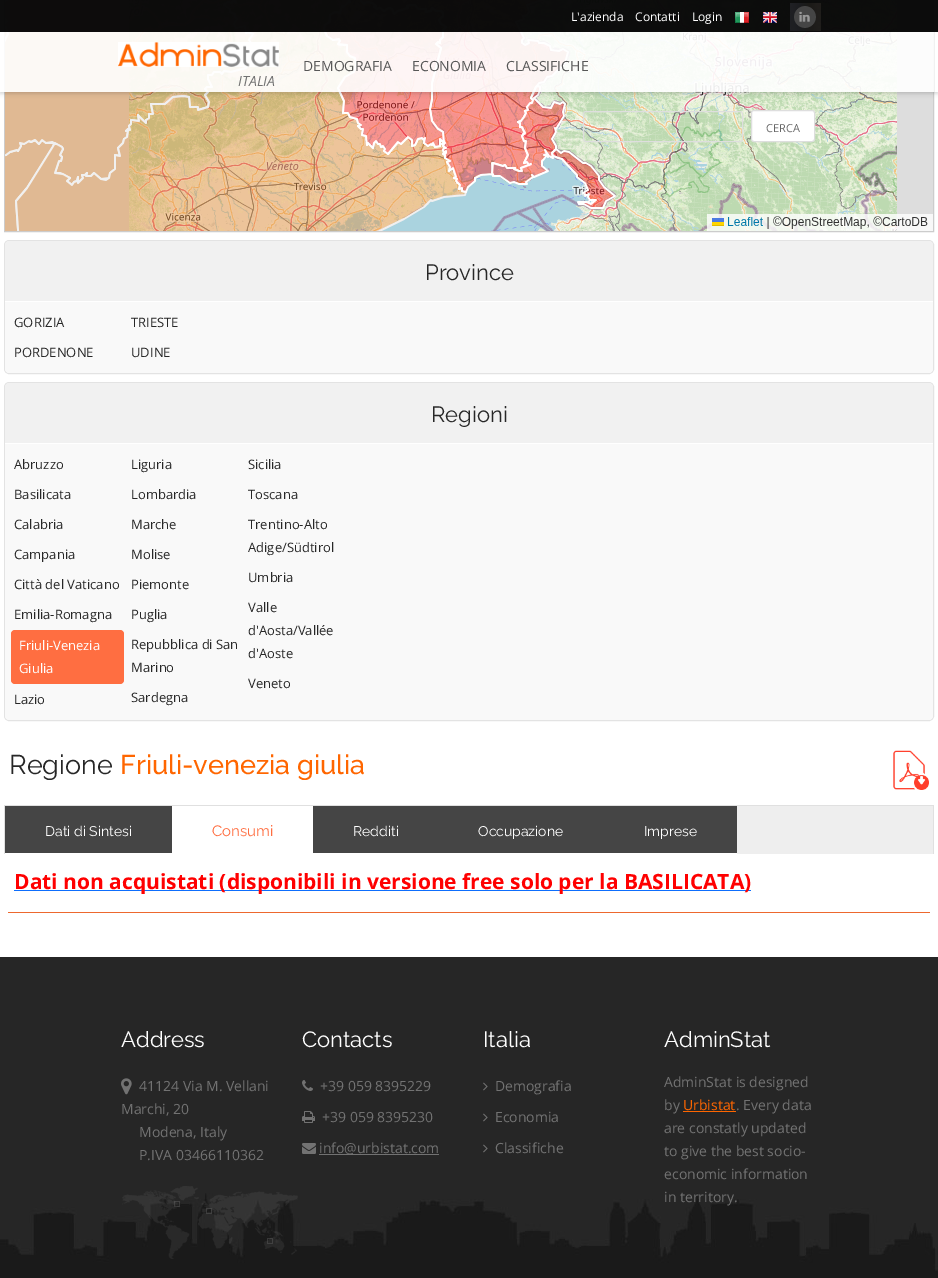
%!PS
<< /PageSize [938 1278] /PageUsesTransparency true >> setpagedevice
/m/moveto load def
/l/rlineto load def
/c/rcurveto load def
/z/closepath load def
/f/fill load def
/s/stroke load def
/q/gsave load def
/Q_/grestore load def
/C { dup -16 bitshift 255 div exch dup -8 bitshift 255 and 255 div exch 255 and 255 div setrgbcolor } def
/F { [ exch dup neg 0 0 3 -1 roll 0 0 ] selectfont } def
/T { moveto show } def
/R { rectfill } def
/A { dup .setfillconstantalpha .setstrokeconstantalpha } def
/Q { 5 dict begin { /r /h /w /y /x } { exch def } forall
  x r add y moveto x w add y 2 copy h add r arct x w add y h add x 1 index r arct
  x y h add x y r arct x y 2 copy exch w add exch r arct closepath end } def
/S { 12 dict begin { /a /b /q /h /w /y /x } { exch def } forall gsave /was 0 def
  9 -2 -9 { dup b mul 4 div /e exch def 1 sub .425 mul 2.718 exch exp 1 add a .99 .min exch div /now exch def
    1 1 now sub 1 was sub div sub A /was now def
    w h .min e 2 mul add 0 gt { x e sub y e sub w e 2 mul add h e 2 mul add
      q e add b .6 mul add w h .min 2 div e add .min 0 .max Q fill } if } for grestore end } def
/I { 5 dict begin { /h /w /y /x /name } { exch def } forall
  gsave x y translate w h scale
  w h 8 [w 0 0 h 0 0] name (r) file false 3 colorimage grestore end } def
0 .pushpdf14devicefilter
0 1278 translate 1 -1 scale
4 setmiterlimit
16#FFFFFF C
0 0 938 1278 R
16#CCCCCC C
4.5 -.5 929 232 rectstroke
(5.rgb) 5 0 928 231 I
0.99 A
16#0A0A0A C
0 0 938 32 R
/OpenSans-Regular 12 F
1 A
16#FFFFFF C
(L'azienda) 571 21 T
(Contatti) 635 21 T
(Login) 692 21 T
(1.rgb) 735 12 14 11 I
(2.rgb) 763 12 14 11 I
q
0 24 m 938 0 l 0 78 l -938 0 l z 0 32 m 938 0 l 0 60 l -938 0 l z eoclip newpath
16#000000 C
0 33 938 60 0 2.5 .2 S
Q_
(3.rgb) 790 3 31 28 I
0.91 A
4 32 930 60 R
/OpenSans-Regular 14 F
1 A
16#575757 C
(DEMOGRAFIA) 303 71 T
(ECONOMIA) 412 71 T
(CLASSIFICHE) 506 71 T
(4.rgb) 118 42 161 25 I
/OpenSans-Italic 14 F
16#727272 C
(ITALIA) 238 86 T
16#DEDEDE C
583.5 111.5 159 30 2.5 Q s
16#FFFFFF C
751.5 110.5 63 31 2.5 Q q f Q_
16#DEDEDE C
s
/OpenSans-Regular 11 F
16#666666 C
(CERCA) 766 132 T
16#E3E3E3 C
4.5 240.5 929 133 4.5 Q s
16#F1F1F1 C
9 241 m 920 0 l 2 0 4 2 4 4 c 0 57 l -928 0 l 0 -57 l 0 -2 2 -4 4 -4 c z f
16#FFFFFF C
5 301 928 1 R
/Raleway-Regular 22 F
16#272727 C
(Province) 425 280 T
16#F9F9F9 C
5 302 m 928 0 l 0 67 l 0 2 -2 4 -4 4 c -920 0 l -2 0 -4 -2 -4 -4 c z f
/OpenSans-Regular 13 F
16#272727 C
(GORIZIA) 14 327 T
(PORDENONE) 14 357 T
(TRIESTE) 131 327 T
(UDINE) 131 357 T
16#E3E3E3 C
4.5 382.5 929 338 4.5 Q s
16#F1F1F1 C
9 383 m 920 0 l 2 0 4 2 4 4 c 0 57 l -928 0 l 0 -57 l 0 -2 2 -4 4 -4 c z f
16#FFFFFF C
5 443 928 1 R
/Raleway-Regular 22 F
16#272727 C
(Regioni) 431 422 T
16#F9F9F9 C
5 444 m 928 0 l 0 272 l 0 2 -2 4 -4 4 c -920 0 l -2 0 -4 -2 -4 -4 c z f
/OpenSans-Regular 13 F
16#272727 C
(Abruzzo) 14 469 T
(Basilicata) 14 499 T
(Calabria) 14 529 T
(Campania) 14 559 T
(Città del Vaticano) 14 589 T
(Emilia-Romagna) 14 619 T
16#FF6E41 C
11 630 113 54 4 Q f
16#FFFFFF C
(Friuli-Venezia) 19 650 T
(Giulia) 19 673 T
16#272727 C
(Lazio) 14 704 T
(Liguria) 131 469 T
(Lombardia) 131 499 T
(Marche) 131 529 T
(Molise) 131 559 T
(Piemonte) 131 589 T
(Puglia) 131 619 T
(Repubblica di San) 131 649 T
(Marino) 131 672 T
(Sardegna) 131 702 T
(Sicilia) 248 469 T
(Toscana) 248 499 T
(Trentino-Alto) 248 529 T
(Adige/Südtirol) 248 552 T
(Umbria) 248 582 T
(Valle) 248 612 T
(d'Aosta/Vallée) 248 635 T
(d'Aoste) 248 658 T
(Veneto) 248 688 T
/Raleway-Regular 27 F
(Regione) 9 774 T
/Raleway-Medium 27 F
16#FF6600 C
(Friuli-venezia giulia) 120 774 T
(6.rgb) 893 750 36 40 I
16#EEEEEE C
737 806 196 48 R
16#E0E0E0 C
4 805 930 1 R
933 805 1 49 R
4 805 1 49 R
16#454545 C
5 806 167 47 R
/Raleway-Regular 14 F
16#FFFFFF C
(Dati di Sintesi) 45 836 T
/Raleway-Regular 15 F
16#FF6E41 C
(Consumi) 212 836 T
16#454545 C
313 806 424 47 R
/Raleway-Regular 14 F
16#FFFFFF C
(Redditi) 353 836 T
(Occupazione) 478 836 T
(Imprese) 644 836 T
16#0D6EFD C
14 890 737 1 R
/OpenSans-Bold 21 F
16#FF0000 C
(Dati non acquistati \(disponibili in versione free solo per la BASILICATA\)) 14 889 T
16#ED682E C
8 912 922 1 R
16#262626 C
0 957 938 236 R
(7.rgb) 0 1193 938 85 I
/Raleway-Regular 22 F
16#FFFFFF C
(Address) 121 1047 T
(8.rgb) 121 1078 11 17 I
/OpenSans-Regular 14 F
16#727272 C
(41124 Via M. Vellani) 139 1091 T
(Marchi, 20) 121 1114 T
(Modena, Italy) 139 1137 T
(P.IVA 03466110362) 139 1160 T
(9.rgb) 122 1186 176 73 I
/Raleway-Regular 22 F
16#FFFFFF C
(Contacts) 302 1047 T
(10.rgb) 302 1080 11 11 I
/OpenSans-Regular 14 F
16#727272 C
(+39 059 8395229) 320 1091 T
(11.rgb) 302 1111 13 12 I
(+39 059 8395230) 322 1122 T
(12.rgb) 302 1143 14 11 I
319 1154 120 1 R
(info@urbistat.com) 319 1153 T
/Raleway-Regular 22 F
16#FFFFFF C
(Italia) 483 1047 T
(13.rgb) 483 1082 5 9 I
/OpenSans-Regular 14 F
16#727272 C
(Demografia) 495 1091 T
(13.rgb) 483 1113 5 9 I
(Economia) 495 1122 T
(13.rgb) 483 1144 5 9 I
(Classifiche) 495 1153 T
/Raleway-Regular 22 F
16#FFFFFF C
(AdminStat) 664 1047 T
/OpenSans-Regular 14 F
16#727272 C
(AdminStat is designed) 664 1087 T
(by) 664 1110 T
16#FF6600 C
(Urbistat) 683 1110 T
683 1111 53 1 R
16#727272 C
(. Every data) 736 1110 T
(are constatly updated) 664 1133 T
(to give the best socio-) 664 1156 T
(economic information) 664 1179 T
(in territory.) 664 1202 T
.poppdf14devicefilter showpage
